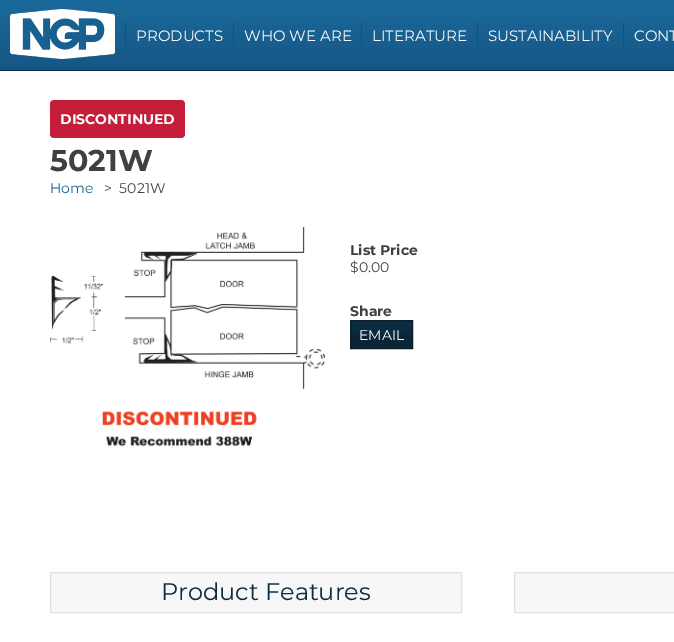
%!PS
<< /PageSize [674 642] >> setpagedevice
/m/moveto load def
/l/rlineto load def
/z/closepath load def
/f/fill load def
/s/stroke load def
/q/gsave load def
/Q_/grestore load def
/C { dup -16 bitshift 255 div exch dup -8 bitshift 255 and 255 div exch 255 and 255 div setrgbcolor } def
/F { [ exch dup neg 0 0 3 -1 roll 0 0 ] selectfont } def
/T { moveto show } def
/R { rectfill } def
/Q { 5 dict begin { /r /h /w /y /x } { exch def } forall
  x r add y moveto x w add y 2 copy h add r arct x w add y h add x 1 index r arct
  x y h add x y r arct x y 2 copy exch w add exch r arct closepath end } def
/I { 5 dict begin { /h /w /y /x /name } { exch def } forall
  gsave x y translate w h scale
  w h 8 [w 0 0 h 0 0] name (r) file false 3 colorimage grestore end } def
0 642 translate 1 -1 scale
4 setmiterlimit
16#FFFFFF C
0 0 674 642 R
q 0 0 m 674 0 l 0 70 l -674 0 l z clip newpath
<< /ShadingType 2 /ColorSpace /DeviceRGB /Coords [337 0 337 70] /Extend [true true] /Function << /FunctionType 2 /Domain [0 1] /C0 [.102 .416 .608] /C1 [.086 .337 .522] /N 1 >> >> shfill Q_
16#0B2B40 C
0 70 674 1 R
(1.rgb) 10 9 105 50 I
16#15527B C
125 22 1 29 R
/Montserrat-Regular 15 F
16#FFFFFF C
(PRODUCTS) 136 41 T
16#15527B C
233 22 1 29 R
16#FFFFFF C
(WHO WE ARE) 244 41 T
16#15527B C
361 22 1 29 R
16#FFFFFF C
(LITERATURE) 372 41 T
16#15527B C
477 22 1 29 R
16#FFFFFF C
(SUSTAINABILITY) 488 41 T
16#15527B C
623 22 1 29 R
16#FFFFFF C
(CONT) 634 41 T
16#C41E3A C
50 100 135 38 4 Q f
/Montserrat-Bold 14 F
16#FFFFFF C
(DISCONTINUED) 60 124 T
/Montserrat-Bold 30 F
16#404040 C
(5021W) 50 171 T
/Montserrat-Regular 14 F
16#186090 C
(Home) 50 193 T
16#404040 C
(>  5021W) 104 193 T
(2.rgb) 50 227 275 220 I
/Montserrat-Bold 14 F
(List Price) 350 255 T
/Montserrat-Regular 14 F
($0.00) 350 272 T
/Montserrat-Bold 14 F
(Share) 350 316 T
16#0B2B40 C
351 321 61 14 R
16#092536 C
351 335 61 13 R
16#0B1D28 C
350.5 320.5 62 28 rectstroke
/Montserrat-Regular 14 F
16#FFFFFF C
(EMAIL) 359 340 T
16#F7F7F7 C
50.5 572.5 m 411 0 l 0 40 l -411 0 l z q f Q_
16#E0E0E0 C
s
/Montserrat-Regular 24 F
16#0B2B40 C
(Product Features) 161 600 T
16#F7F7F7 C
514.5 572.5 m 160 0 l 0 40 l -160 0 l z q f Q_
16#E0E0E0 C
s
showpage
